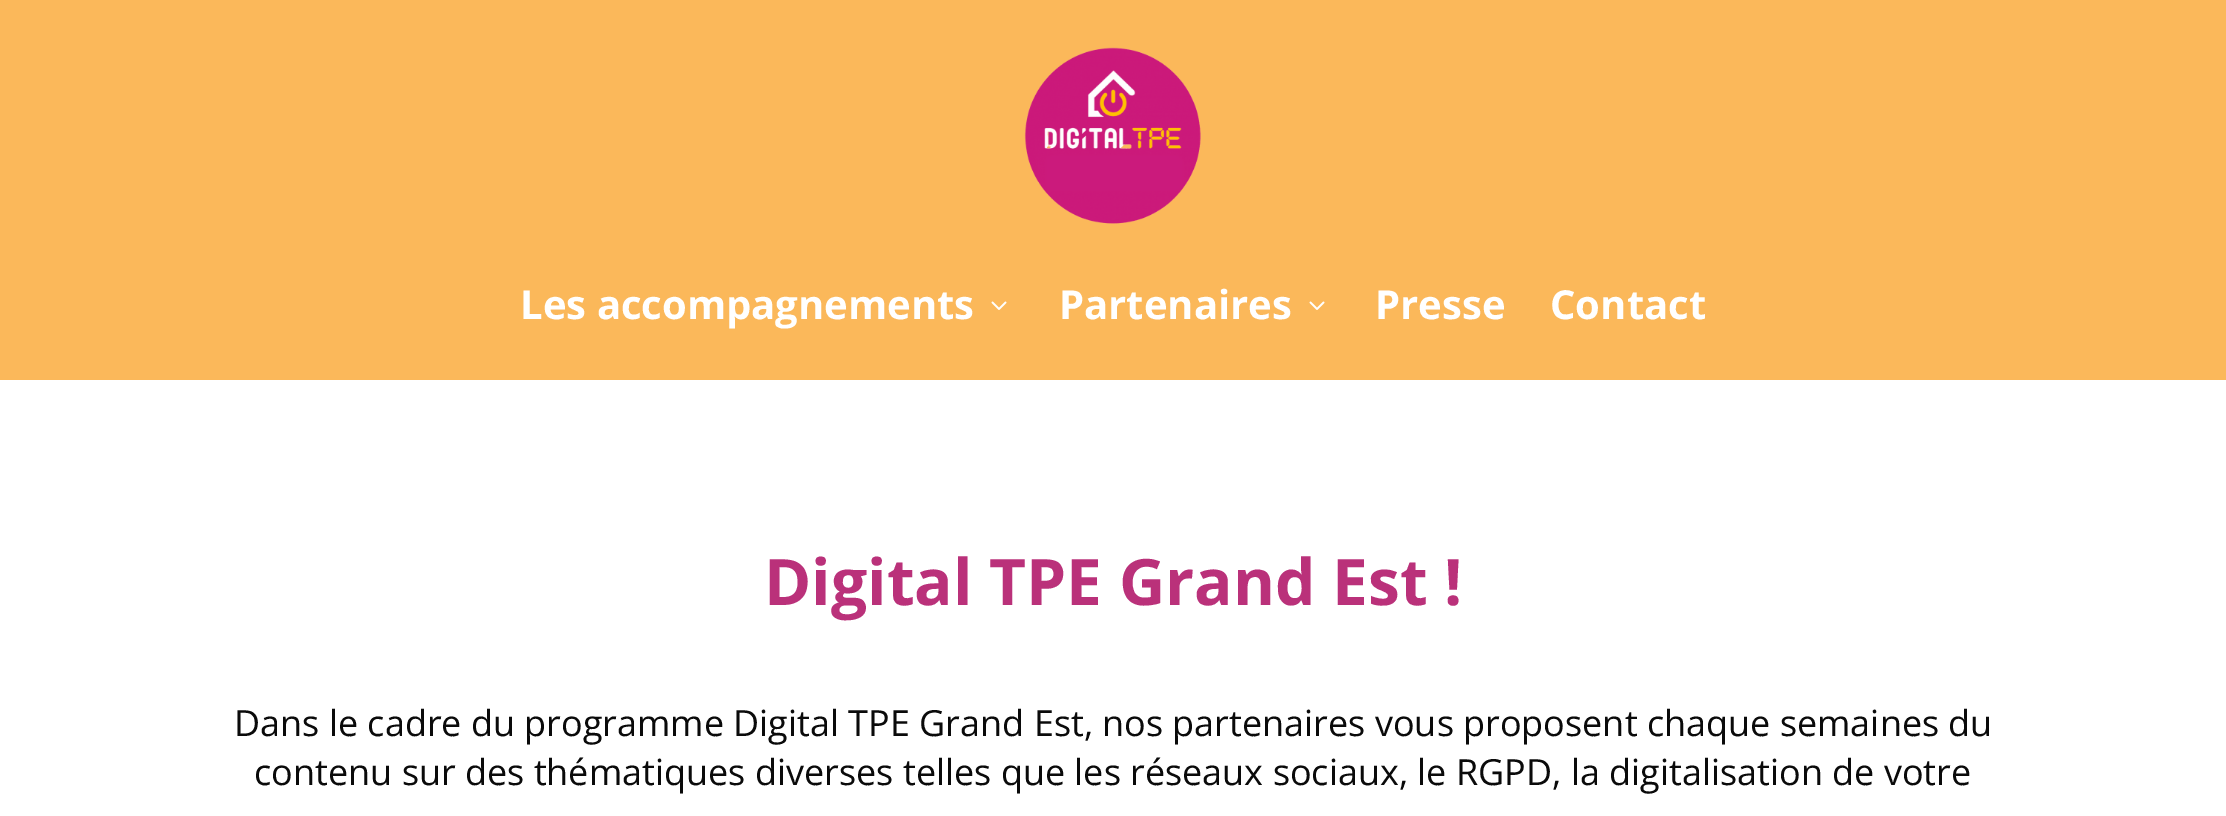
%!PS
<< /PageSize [2226 816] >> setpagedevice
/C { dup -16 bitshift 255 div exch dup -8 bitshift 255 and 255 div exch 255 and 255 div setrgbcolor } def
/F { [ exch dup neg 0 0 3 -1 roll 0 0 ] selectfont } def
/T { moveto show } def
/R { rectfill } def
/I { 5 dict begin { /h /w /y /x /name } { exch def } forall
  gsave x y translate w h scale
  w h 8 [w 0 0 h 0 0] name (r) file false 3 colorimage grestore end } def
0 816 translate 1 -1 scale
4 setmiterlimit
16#FFFFFF C
0 0 2226 816 R
16#FBB85A C
0 0 2226 380 R
(1.rgb) 1024 47 177 177 I
/OpenSans-Bold 40 F
16#FFFFFF C
(Les accompagnements) 520 319 T
(2.rgb) 991 301 16 9 I
(Partenaires) 1059 319 T
(2.rgb) 1309 301 16 9 I
(Presse) 1375 319 T
(Contact) 1550 319 T
/OpenSans-Bold 64 F
16#BA317A C
(Digital TPE Grand Est !) 764 605 T
/OpenSans-Regular 36 F
16#0A0A0A C
(Dans le cadre du programme Digital TPE Grand Est, nos partenaires vous proposent chaque semaines du) 234 736 T
(contenu sur des thématiques diverses telles que les réseaux sociaux, le RGPD, la digitalisation de votre) 254 785 T
showpage
